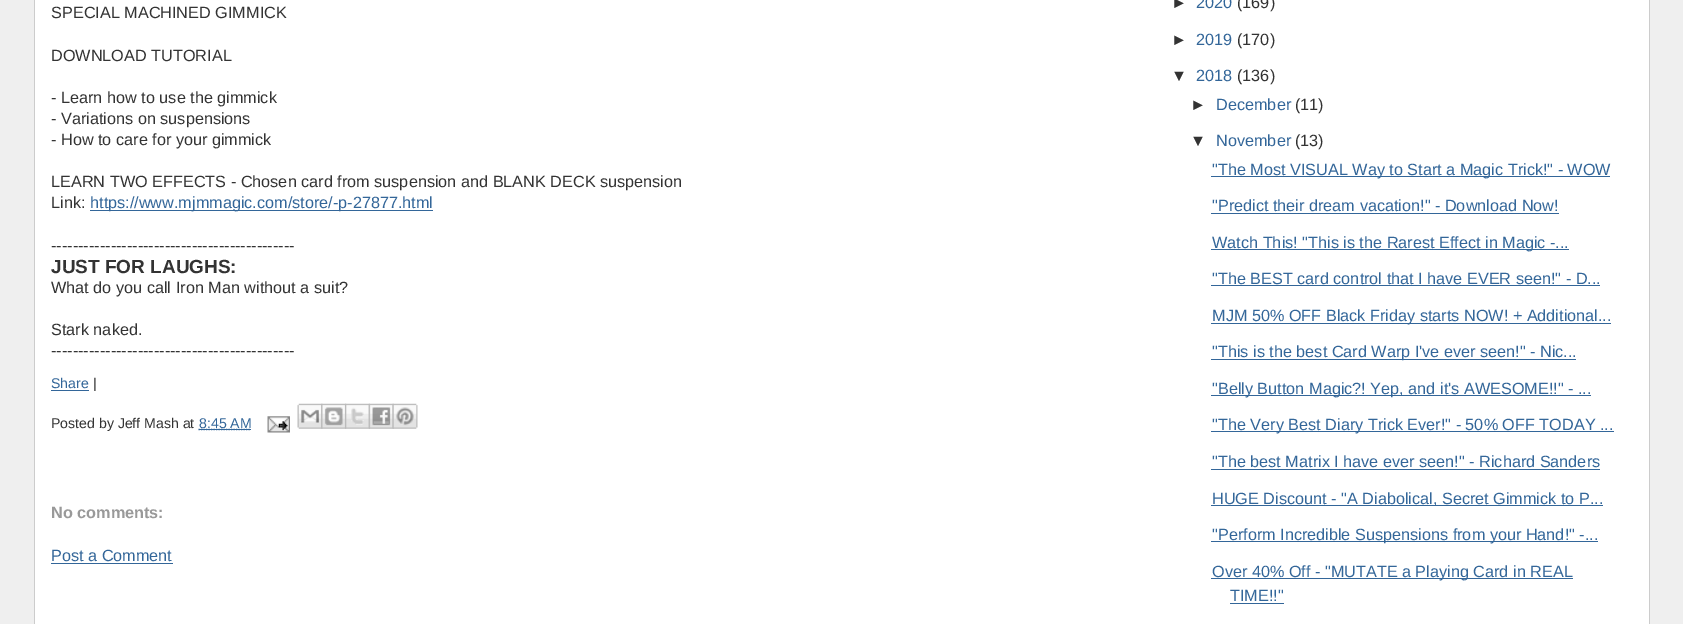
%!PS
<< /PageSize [1683 624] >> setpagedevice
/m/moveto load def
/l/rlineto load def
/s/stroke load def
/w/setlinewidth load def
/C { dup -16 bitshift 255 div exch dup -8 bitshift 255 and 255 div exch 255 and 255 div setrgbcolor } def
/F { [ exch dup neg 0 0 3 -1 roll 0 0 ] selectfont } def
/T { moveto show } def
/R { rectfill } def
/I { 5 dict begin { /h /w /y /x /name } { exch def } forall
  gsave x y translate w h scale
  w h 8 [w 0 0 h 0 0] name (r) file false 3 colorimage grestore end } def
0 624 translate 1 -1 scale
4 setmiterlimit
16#EFEFEF C
0 0 1683 624 R
16#FFFFFF C
35 0 1614 624 R
16#CCCCCC C
1649 0 1 624 R
34 0 1 624 R
/LiberationSans-Regular 16.25 F
16#333333 C
(SPECIAL MACHINED GIMMICK) 51 18 T
(DOWNLOAD TUTORIAL) 51 61 T
(- Learn how to use the gimmick) 51 103 T
(- Variations on suspensions) 51 124 T
(- How to care for your gimmick) 51 145 T
(LEARN TWO EFFECTS - Chosen card from suspension and BLANK DECK suspension) 51 187 T
(Link:) 51 208 T
16#336699 C
90 210 343 1 R
(https://www.mjmmagic.com/store/-p-27877.html) 90 208 T
16#333333 C
(---------------------------------------------) 51 251 T
/LiberationSans-Bold 19 F
(JUST FOR LAUGHS:) 51 273 T
/LiberationSans-Regular 16.25 F
(What do you call Iron Man without a suit?) 51 293 T
(Stark naked.) 51 335 T
(---------------------------------------------) 51 356 T
/LiberationSans-Regular 14.1 F
16#336699 C
(Share) 51 388 T
51 390 38 1 R
16#333333 C
(|) 93 388 T
(Posted by Jeff Mash at) 51 428 T
16#336699 C
1.2 w
[1.25 1.25] 0 setdash
198.5 429.5 m 52.5 0 l s
(8:45 AM) 199 428 T
199 429 52 1 R
(1.rgb) 267 416 23 17 I
(2.rgb) 297 403 26 26 I
(3.rgb) 321 403 26 26 I
(4.rgb) 345 403 25 26 I
(5.rgb) 368 403 26 26 I
(6.rgb) 392 403 26 26 I
/LiberationSans-Bold 16.25 F
16#999999 C
(No comments:) 51 518 T
/LiberationSans-Regular 16.25 F
16#336699 C
(Post a Comment) 51 561 T
51 563 122 1 R
16#333333 C
(►) 1171 8 T
16#336699 C
(2020) 1196 8 T
16#333333 C
(\(169\)) 1237 8 T
(►) 1171 45 T
16#336699 C
(2019) 1196 45 T
16#333333 C
(\(170\)) 1237 45 T
(▼) 1171 81 T
16#336699 C
(2018) 1196 81 T
16#333333 C
(\(136\)) 1237 81 T
(►) 1190 110 T
16#336699 C
(December) 1216 110 T
16#333333 C
(\(11\)) 1295 110 T
(▼) 1190 146 T
16#336699 C
(November) 1216 146 T
16#333333 C
(\(13\)) 1295 146 T
16#336699 C
1211 176 399 1 R
("The Most VISUAL Way to Start a Magic Trick!" - WOW) 1212 175 T
("Predict their dream vacation!" - Download Now!) 1212 211 T
1211 213 348 1 R
1211 249 358 1 R
(Watch This! "This is the Rarest Effect in Magic -...) 1212 248 T
("The BEST card control that I have EVER seen!" - D...) 1212 284 T
1211 285 389 1 R
1211 323 400 1 R
(MJM 50% OFF Black Friday starts NOW! + Additional...) 1212 321 T
1211 359 365 1 R
("This is the best Card Warp I've ever seen!" - Nic...) 1212 357 T
1211 395 380 1 R
("Belly Button Magic?! Yep, and it's AWESOME!!" - ...) 1212 394 T
1211 431 403 1 R
("The Very Best Diary Trick Ever!" - 50% OFF TODAY ...) 1212 430 T
("The best Matrix I have ever seen!" - Richard Sanders) 1212 467 T
1211 469 389 1 R
1211 505 392 1 R
(HUGE Discount - "A Diabolical, Secret Gimmick to P...) 1212 504 T
1211 541 387 1 R
("Perform Incredible Suspensions from your Hand!" -...) 1212 540 T
1211 578 362 1 R
(Over 40% Off - "MUTATE a Playing Card in REAL) 1212 577 T
(TIME!!") 1230 601 T
1230 603 54 1 R
showpage
